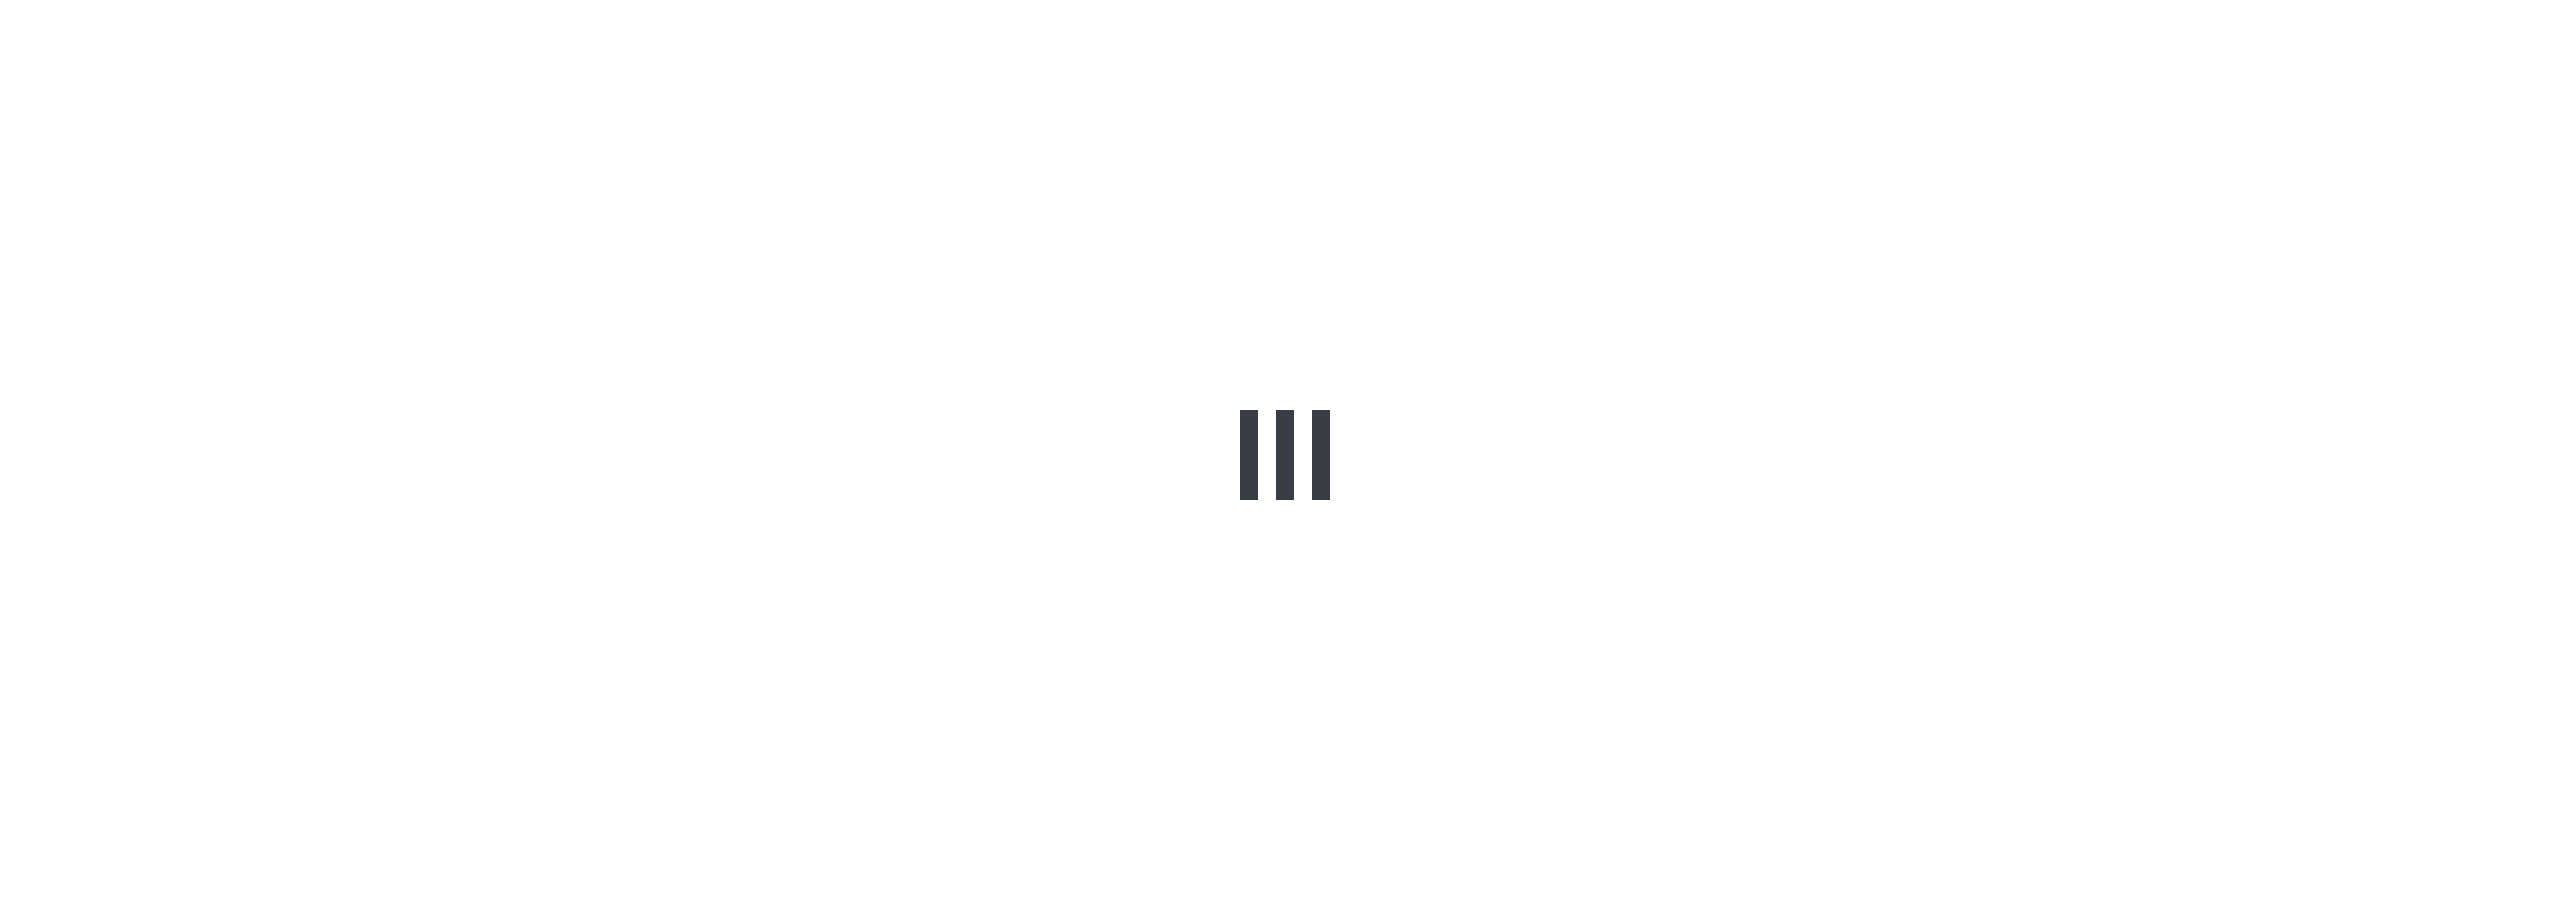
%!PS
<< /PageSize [2568 909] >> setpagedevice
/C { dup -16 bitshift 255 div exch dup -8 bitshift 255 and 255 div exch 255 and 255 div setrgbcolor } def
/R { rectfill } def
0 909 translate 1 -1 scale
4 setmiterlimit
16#FFFFFF C
0 0 2568 909 R
16#393E46 C
1312 410 18 90 R
1276 410 18 90 R
1240 410 18 90 R
showpage
